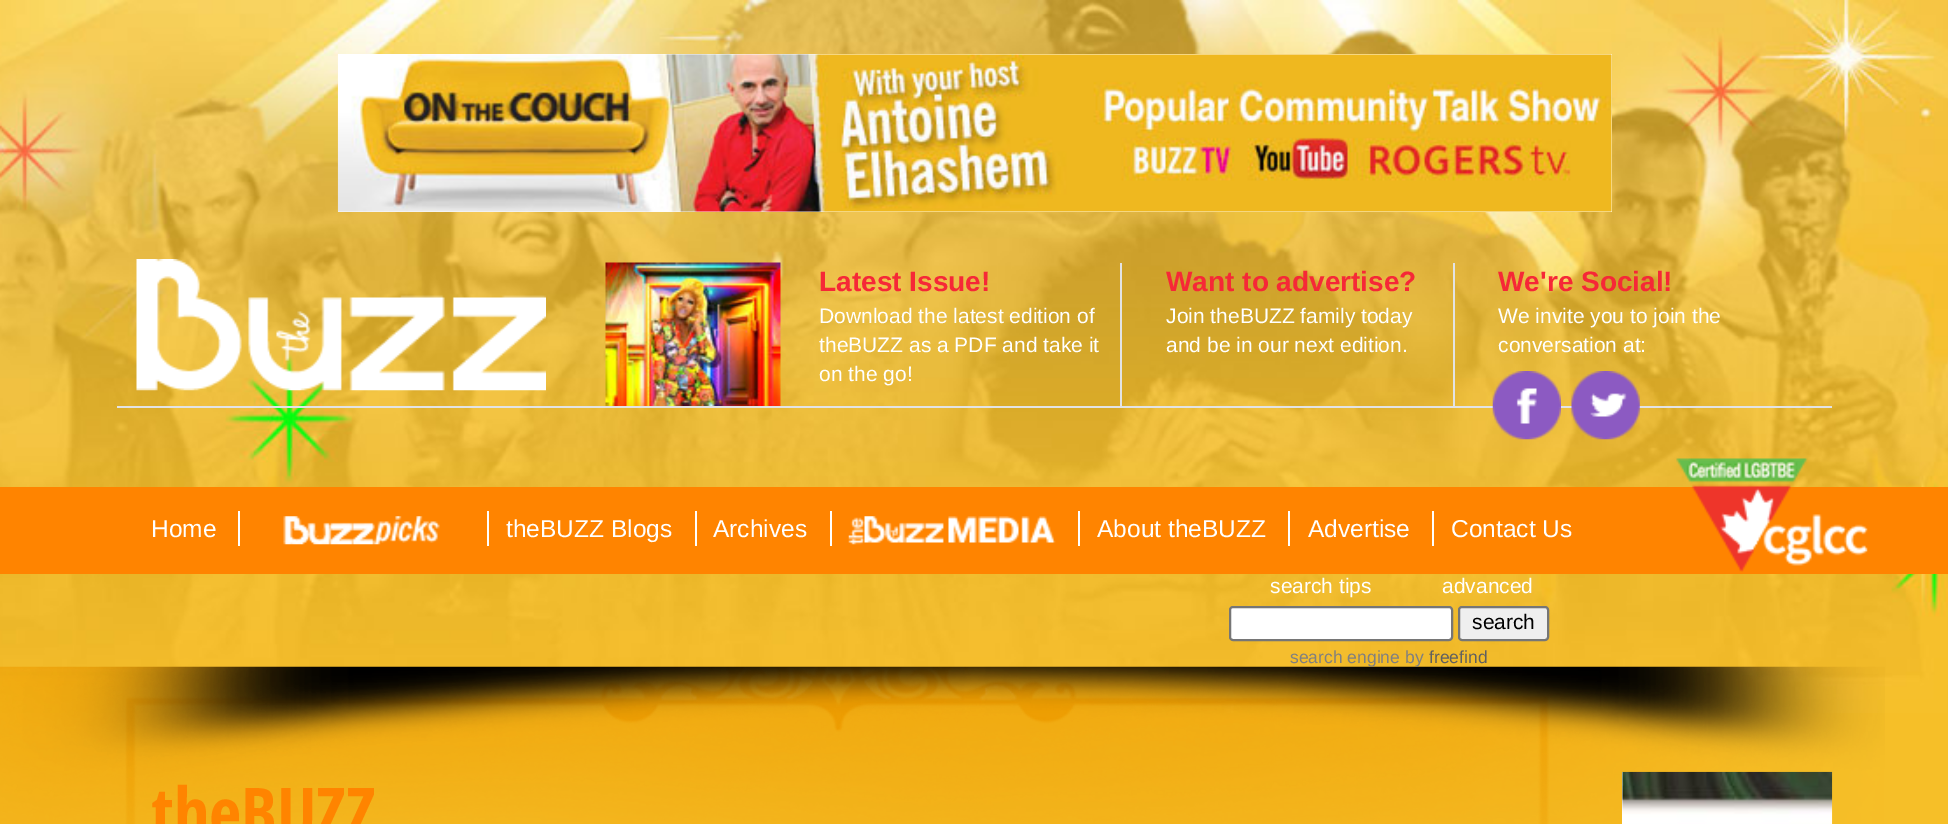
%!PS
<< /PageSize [1948 824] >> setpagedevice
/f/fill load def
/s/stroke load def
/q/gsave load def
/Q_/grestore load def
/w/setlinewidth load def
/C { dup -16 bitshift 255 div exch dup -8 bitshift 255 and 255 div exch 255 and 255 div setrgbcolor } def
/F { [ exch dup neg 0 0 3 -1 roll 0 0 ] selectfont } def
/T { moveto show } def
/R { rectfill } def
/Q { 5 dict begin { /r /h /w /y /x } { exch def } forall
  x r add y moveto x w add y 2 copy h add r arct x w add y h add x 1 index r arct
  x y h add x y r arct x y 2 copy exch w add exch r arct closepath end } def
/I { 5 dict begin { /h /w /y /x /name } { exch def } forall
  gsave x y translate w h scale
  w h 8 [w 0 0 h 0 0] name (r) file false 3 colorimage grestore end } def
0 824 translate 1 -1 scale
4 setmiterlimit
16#F6BF28 C
0 0 1948 824 R
(1.rgb) 0 0 1948 713 I
16#FFFFFF C
338 54 1274 158 R
(2.rgb) 337 54 1275 158 I
16#E2E3E5 C
117 406 1715 2 R
(3.rgb) 136 259 410 132 I
(4.rgb) 605 262 176 144 I
/LiberationSans-Bold 28 F
16#F62837 C
(Latest Issue!) 819 291 T
/LiberationSans-Regular 21 F
16#FFFFFF C
(Download the latest edition of) 819 323 T
(theBUZZ as a PDF and take it) 819 352 T
(on the go!) 819 381 T
16#E2E3E5 C
1120 263 2 143 R
/LiberationSans-Bold 28 F
16#F62837 C
(Want to advertise?) 1166 291 T
/LiberationSans-Regular 21 F
16#FFFFFF C
(Join theBUZZ family today) 1166 323 T
(and be in our next edition.) 1166 352 T
16#E2E3E5 C
1453 263 2 143 R
/LiberationSans-Bold 28 F
16#F62837 C
(We're Social!) 1498 291 T
/LiberationSans-Regular 21 F
16#FFFFFF C
(We invite you to join the) 1498 323 T
(conversation at:) 1498 352 T
(5.rgb) 1492 371 69 69 I
(6.rgb) 1571 371 69 69 I
16#FF8400 C
0 487 1948 87 R
/LiberationSans-Regular 24.5 F
16#FFFFFF C
(Home) 151 537 T
238 511 2 35 R
(7.rgb) 283 516 157 29 I
487 511 2 35 R
(theBUZZ Blogs) 506 537 T
695 511 2 35 R
(Archives) 713 537 T
830 511 2 35 R
(8.rgb) 848 516 208 29 I
1078 511 2 35 R
(About theBUZZ) 1097 537 T
1288 511 2 35 R
(Advertise) 1308 537 T
1432 511 2 35 R
(Contact Us) 1451 537 T
(9.rgb) 1676 458 192 114 I
/LiberationSans-Regular 21 F
(search tips) 1270 593 T
(advanced) 1442 593 T
1230 607 222 33 3 Q q f Q_
16#767676 C
2 w
s
16#EFEFEF C
1459 607 89 33 3 Q q f Q_
16#767676 C
s
16#000000 C
(search) 1472 629 T
(10.rgb) 0 666 1885 158 I
/LiberationSans-Regular 17.5 F
16#808080 C
(search engine by) 1290 663 T
16#606060 C
(freefind) 1429 663 T
/OpenSansCondensed-Bold 70 F
16#FF8400 C
(theBUZZ) 151 838 T
16#FFFFFF C
1622 772 1 52 R
(11.rgb) 1622 771 211 53 I
showpage
